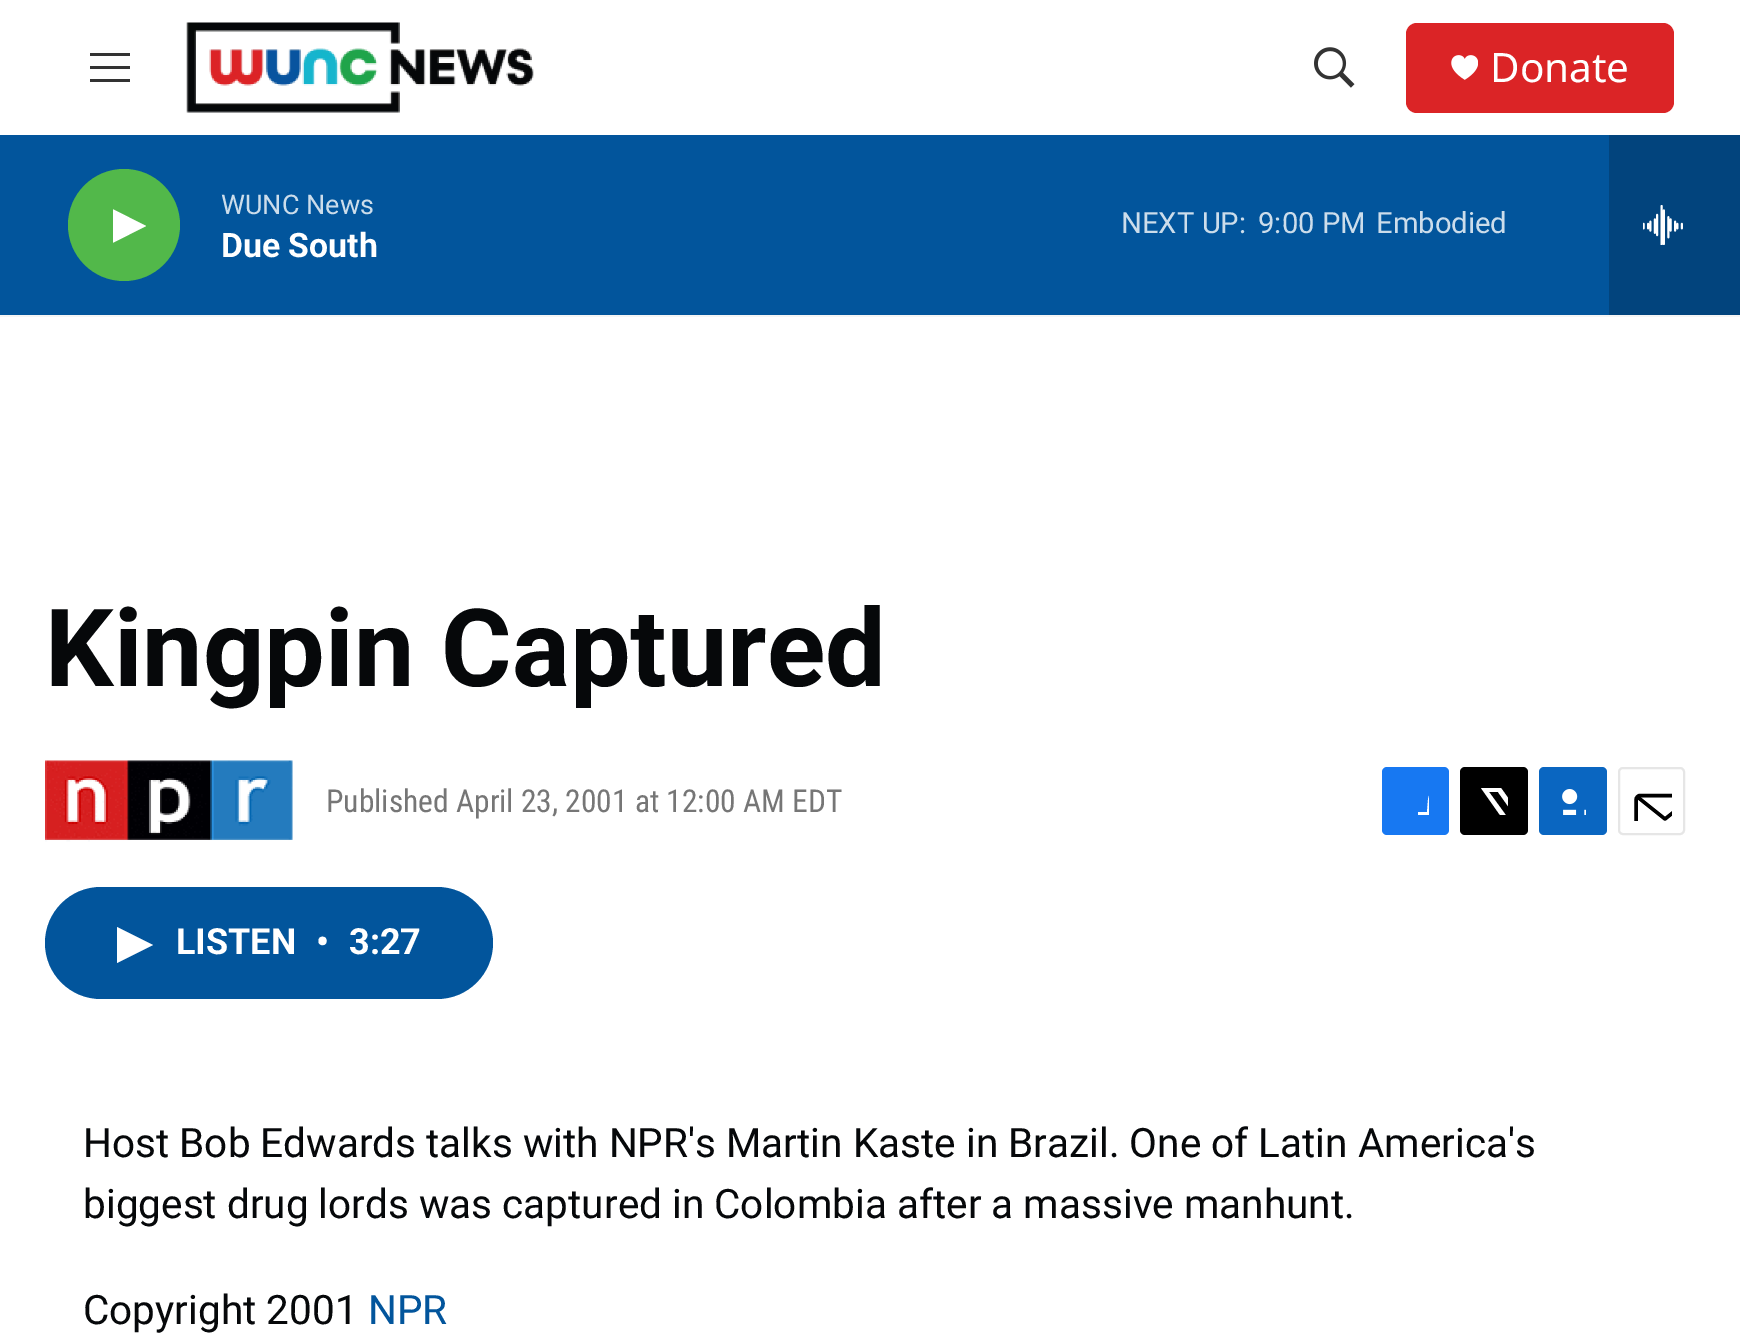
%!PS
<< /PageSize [1740 1341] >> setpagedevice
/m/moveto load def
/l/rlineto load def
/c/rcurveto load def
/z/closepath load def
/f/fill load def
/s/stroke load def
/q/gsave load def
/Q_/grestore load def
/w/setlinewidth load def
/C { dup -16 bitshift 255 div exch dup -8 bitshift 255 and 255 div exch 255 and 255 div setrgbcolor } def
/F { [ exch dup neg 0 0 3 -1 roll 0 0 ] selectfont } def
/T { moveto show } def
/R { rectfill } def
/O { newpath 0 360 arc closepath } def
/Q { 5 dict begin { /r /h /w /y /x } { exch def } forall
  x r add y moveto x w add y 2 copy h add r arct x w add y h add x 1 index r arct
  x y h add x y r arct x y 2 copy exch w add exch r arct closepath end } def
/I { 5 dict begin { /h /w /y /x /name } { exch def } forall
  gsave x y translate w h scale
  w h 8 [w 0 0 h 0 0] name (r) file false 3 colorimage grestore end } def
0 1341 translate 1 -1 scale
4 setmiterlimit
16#FFFFFF C
0 0 1740 1341 R
16#F5F5F5 C
0 315 1740 2 R
16#333333 C
90 69 m 0 -3 l 40 0 l 0 3 l z 90 56 m 0 -3 l 40 0 l 0 3 l z 90 82 m 0 -3 l 40 0 l 0 3 l z eofill
(1.rgb) 186 22 348 91 I
(2.rgb) 1314 47 41 41 I
16#DB2426 C
1406 23 268 90 11 Q f
(3.rgb) 1451 55 27 25 I
/NotoSans-Regular 40.5 F
16#FFFFFF C
(Donate) 1490 82 T
16#02559C C
0 135 1609 180 R
16#52B84A C
124 225 56 O f
q
113 205 33 43 rectclip
16#FFFFFF C
112.5 209 m 33.5 17 l -33.5 17 l z f
Q_
/Roboto-Regular 27 F
16#CCDDEB C
(WUNC News) 221 214 T
/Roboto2-Bold 33.75 F
16#FFFFFF C
(Due South) 221 257 T
/Roboto-Regular 29.25 F
16#CCDDEB C
(NEXT UP:) 1121 233 T
(9:00 PM) 1258 233 T
(Embodied) 1376 233 T
16#02447D C
1609 135 131 180 R
(4.rgb) 1643 205 40 40 I
/Roboto-Bold 108 F
16#06080A C
(Kingpin Captured) 45 686 T
(5.rgb) 45 760 248 82 I
/RobotoCondensed-Regular 31.5 F
16#767676 C
(Published April 23, 2001 at 12:00 AM EDT) 326 812 T
16#1778F2 C
1382 767 67 68 5 Q f
q
1402 788 27 27 rectclip
16#FFFFFF C
1439 835 m -12 0 l 0 -11 l -9 0 l 0 -12 l 9 0 l 1 -12 l 1 -11 11 -13 21 -11 c 0 10 l -12 0 -10 3 -10 13 c 10 0 l 0 6 l -1 6 l -9 0 l z f
Q_
16#000000 C
1460 767 68 68 5 Q f
q
1481 788 27 27 rectclip
16#FFFFFF C
1521 816 m 7 10 l 0 3 0 5 -1 7 c -29 -41 l -9 0 l 24 33 l 7 10 l -6 0 l -4 -6 l -5 6 l -7 0 l 9 -10 l -26 -37 l 20 0 l 17 24 l 10 -11 l 0 7 l z f
Q_
16#0A66C1 C
1539 767 68 68 5 Q f
(6.rgb) 1562 789 24 26 I
16#E6E6E6 C
2 w
1619 768 65 66 4 Q s
q
1631 781 41 40 rectclip
16#000000 C
3.4 w
1 setlinecap
1 setlinejoin
1694 830 m 0 2.5 -2 4.5 -4 4.5 c -50 0 l -2 0 -4 -2 -4 -4.5 c 0 -30 l 0 -2.5 2 -4.5 4 -4.5 c 50 0 l 2 0 4 2 4 4.5 c z 1692.5 797 m -27.5 22 l -27.5 -22 l s
Q_
16#02559C C
45 887 448 112 56 Q f
16#FFFFFF C
117 927 m 36 18 l -36 18 l z f
/Roboto2-Bold 36 F
(LISTEN) 176 954 T
(•) 316 954 T
(3:27) 349 954 T
/Roboto-Regular 40.5 F
16#06080A C
(Host Bob Edwards talks with NPR's Martin Kaste in Brazil. One of Latin America's) 83 1157 T
(biggest drug lords was captured in Colombia after a massive manhunt.) 83 1218 T
(Copyright 2001) 83 1324 T
16#02559C C
(NPR) 368 1324 T
showpage
